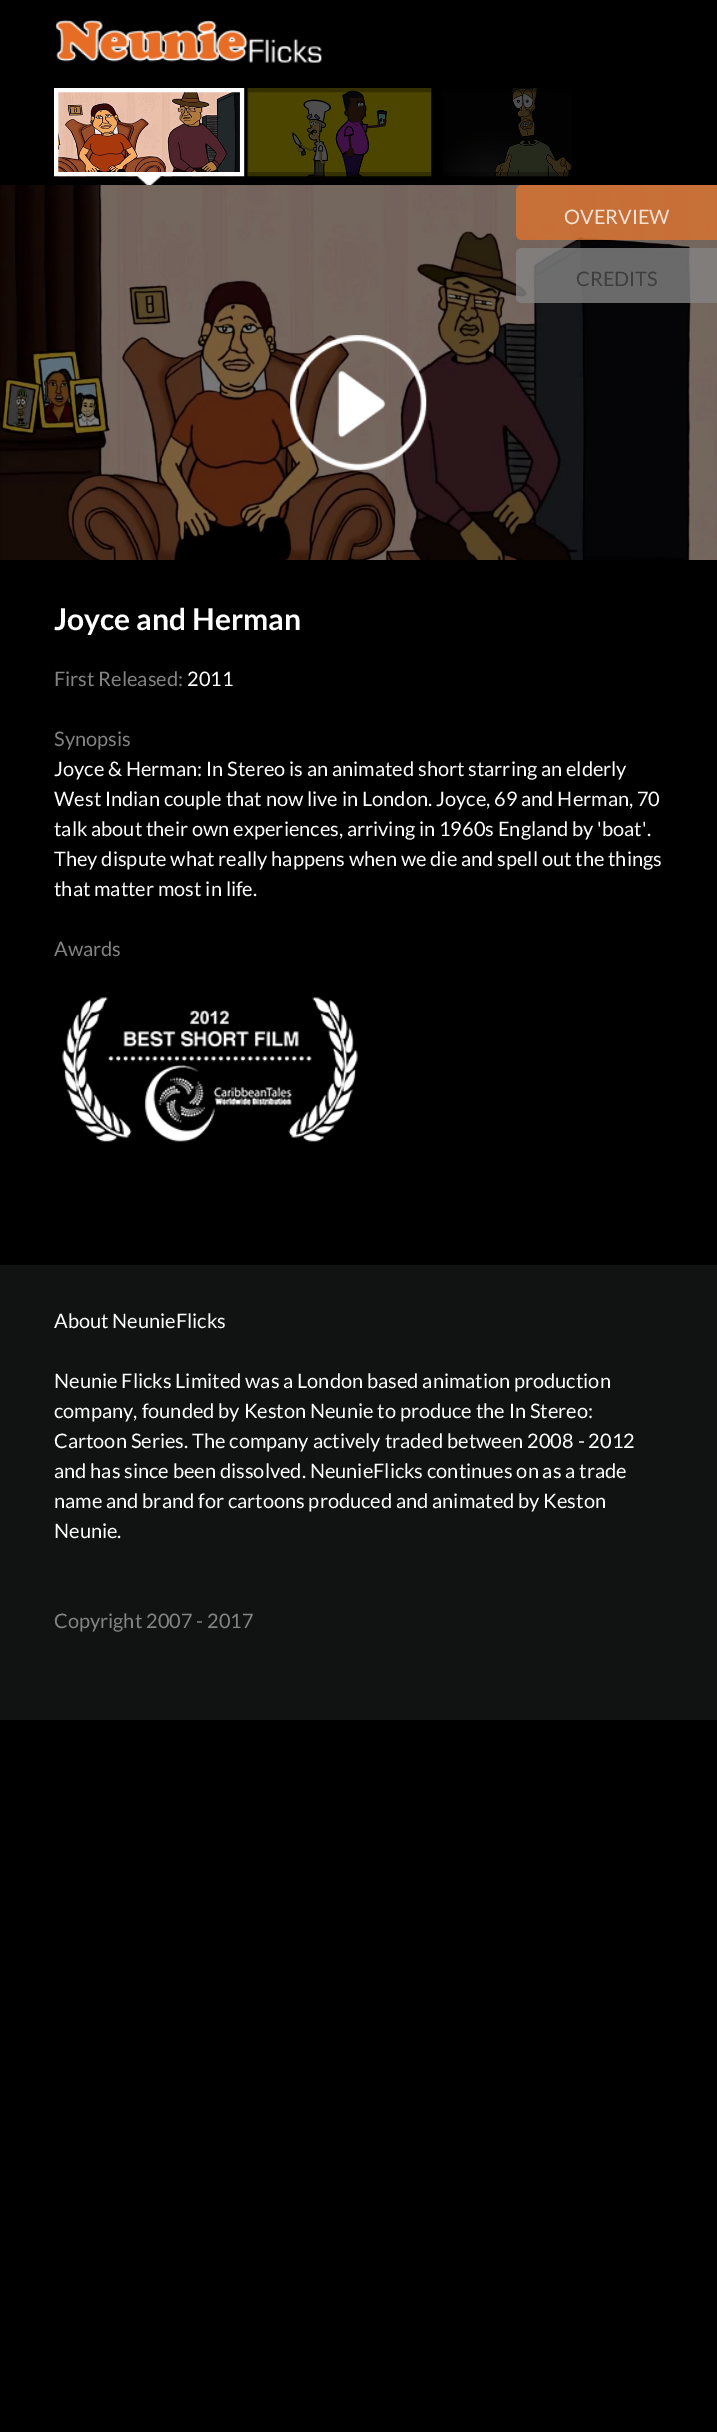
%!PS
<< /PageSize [717 2432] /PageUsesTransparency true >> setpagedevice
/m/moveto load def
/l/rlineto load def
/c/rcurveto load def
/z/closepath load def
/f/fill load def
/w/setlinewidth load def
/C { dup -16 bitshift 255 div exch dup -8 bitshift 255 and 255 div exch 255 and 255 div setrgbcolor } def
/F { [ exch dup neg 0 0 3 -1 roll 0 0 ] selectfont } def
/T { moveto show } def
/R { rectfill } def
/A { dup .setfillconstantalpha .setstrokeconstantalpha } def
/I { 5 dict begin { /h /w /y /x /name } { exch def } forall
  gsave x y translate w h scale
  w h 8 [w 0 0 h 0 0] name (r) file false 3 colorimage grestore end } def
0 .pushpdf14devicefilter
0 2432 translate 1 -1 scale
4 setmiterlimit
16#000000 C
0 0 717 2432 R
(1.rgb) 55 20 267 43 I
(2.rgb) 57 92 183 85 I
16#FFFFFF C
4 w
56 90 186 84 rectstroke
(3.rgb) 136 176 27 9 I
(4.rgb) 247 88 185 89 I
0.3 A
16#000000 C
246 90 187 84 rectstroke
1 A
(5.rgb) 443 88 129 89 I
0.3 A
437 90 186 84 rectstroke
1 A
(6.rgb) 0 185 717 375 I
0.8 A
16#DC722D C
522 185 m 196 0 l 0 55 l -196 0 l -3.5 0 -6 -2.5 -6 -6 c 0 -43 l 0 -3.5 2.5 -6 6 -6 c z f
/Lato-Regular 20 F
1 A
16#F4E2D7 C
(OVERVIEW) 564 224 T
0.8 A
16#838383 C
522 248 m 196 0 l 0 55 l -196 0 l -3.5 0 -6 -2.5 -6 -6 c 0 -43 l 0 -3.5 2.5 -6 6 -6 c z f
1 A
16#3E3E3E C
(CREDITS) 576 286 T
(7.rgb) 290 335 137 135 I
/Lato-Bold 30 F
16#FFFFFF C
(Joyce and Herman) 54 630 T
/Lato-Regular 20 F
16#838383 C
(First Released:) 54 686 T
16#FFFFFF C
(2011) 187 686 T
16#838383 C
(Synopsis) 54 746 T
16#FFFFFF C
(Joyce & Herman: In Stereo is an animated short starring an elderly) 54 776 T
(West Indian couple that now live in London. Joyce, 69 and Herman, 70) 54 806 T
(talk about their own experiences, arriving in 1960s England by 'boat'.) 54 836 T
(They dispute what really happens when we die and spell out the things) 54 866 T
(that matter most in life.) 54 896 T
16#838383 C
(Awards) 54 956 T
(8.rgb) 62 997 296 145 I
16#111312 C
0 1265 717 455 R
16#FFFFFF C
(About NeunieFlicks) 54 1328 T
(Neunie Flicks Limited was a London based animation production) 54 1388 T
(company, founded by Keston Neunie to produce the In Stereo:) 54 1418 T
(Cartoon Series. The company actively traded between 2008 - 2012) 54 1448 T
(and has since been dissolved. NeunieFlicks continues on as a trade) 54 1478 T
(name and brand for cartoons produced and animated by Keston) 54 1508 T
(Neunie.) 54 1538 T
16#838383 C
(Copyright 2007 - 2017) 54 1628 T
.poppdf14devicefilter showpage
